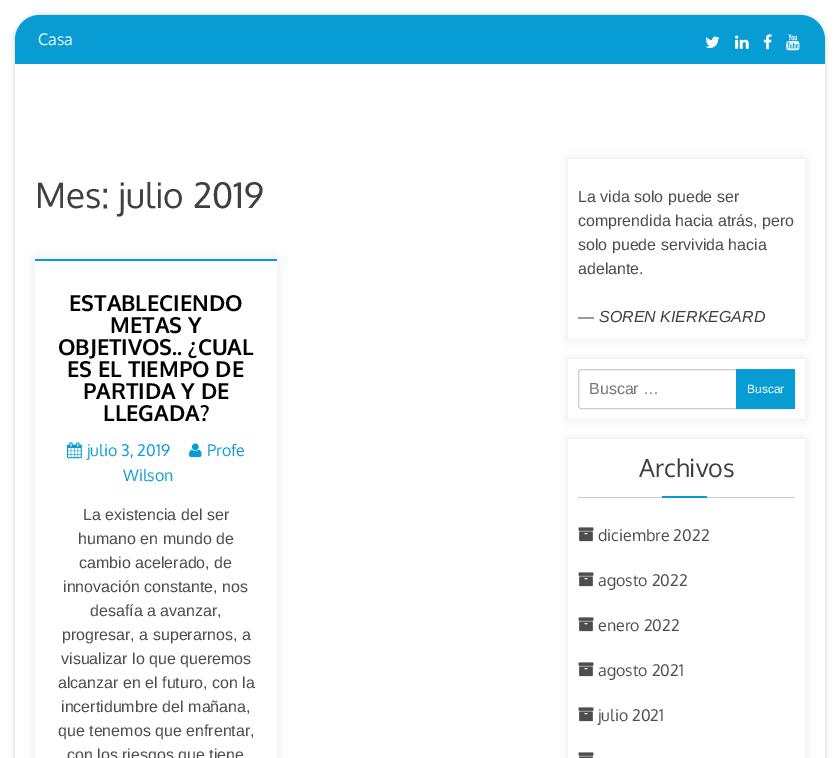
%!PS
<< /PageSize [840 758] /PageUsesTransparency true >> setpagedevice
/m/moveto load def
/l/rlineto load def
/c/rcurveto load def
/z/closepath load def
/f/fill load def
/s/stroke load def
/q/gsave load def
/Q_/grestore load def
/C { dup -16 bitshift 255 div exch dup -8 bitshift 255 and 255 div exch 255 and 255 div setrgbcolor } def
/F { [ exch dup neg 0 0 3 -1 roll 0 0 ] selectfont } def
/T { moveto show } def
/R { rectfill } def
/A { dup .setfillconstantalpha .setstrokeconstantalpha } def
/Q { 5 dict begin { /r /h /w /y /x } { exch def } forall
  x r add y moveto x w add y 2 copy h add r arct x w add y h add x 1 index r arct
  x y h add x y r arct x y 2 copy exch w add exch r arct closepath end } def
/S { 12 dict begin { /a /b /q /h /w /y /x } { exch def } forall gsave /was 0 def
  9 -2 -9 { dup b mul 4 div /e exch def 1 sub .425 mul 2.718 exch exp 1 add a .99 .min exch div /now exch def
    1 1 now sub 1 was sub div sub A /was now def
    w h .min e 2 mul add 0 gt { x e sub y e sub w e 2 mul add h e 2 mul add
      q e add b .6 mul add w h .min 2 div e add .min 0 .max Q fill } if } for grestore end } def
/I { 5 dict begin { /h /w /y /x /name } { exch def } forall
  gsave x y translate w h scale
  w h 8 [w 0 0 h 0 0] name (r) file false 3 colorimage grestore end } def
0 .pushpdf14devicefilter
0 758 translate 1 -1 scale
4 setmiterlimit
16#FFFFFF C
0 0 840 758 R
16#000000 C
15 15 810 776 25 2.5 .2 S
16#FFFFFF C
15 15 810 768 25 Q f
16#079CD4 C
40 15 m 760 0 l 14 0 25 11 25 25 c 0 24 l -810 0 l 0 -24 l 0 -14 11 -25 25 -25 c z f
/Oxygen-Regular 16 F
16#FFFFFF C
(Casa) 38 45 T
(1.rgb) 705 36 15 12 I
(2.rgb) 735 35 14 14 I
(3.rgb) 763 34 9 16 I
(4.rgb) 786 34 14 17 I
/Oxygen-Regular 35 F
16#404040 C
(Mes: julio 2019) 35 208 T
q
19 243 m 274 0 l 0 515 l -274 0 l z 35 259 m 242 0 l 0 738 l -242 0 l z eoclip newpath
16#000000 C
35 259 242 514 0 5 .1 S
Q_
16#079CD4 C
35 259 242 2 R
/Oxygen-Bold 22 F
16#000000 C
(ESTABLECIENDO) 69 311 T
(METAS Y) 110 333 T
(OBJETIVOS.. ¿CUAL) 58 355 T
(ES EL TIEMPO DE) 67 377 T
(PARTIDA Y DE) 83 399 T
(LLEGADA?) 103 421 T
(5.rgb) 189 443 13 15 I
/Oxygen-Regular 16 F
16#079CD4 C
(Profe) 207 456 T
(Wilson) 123 481 T
(6.rgb) 67 442 15 17 I
(julio 3, 2019) 87 456 T
/LiberationSans-Regular 16 F
16#4D4D4D C
(La existencia del ser) 83 520 T
(humano en mundo de) 78 544 T
(cambio acelerado, de) 79 568 T
(innovación constante, nos) 63 592 T
(desafía a avanzar,) 90 616 T
(progresar, a superarnos, a) 62 640 T
(visualizar lo que queremos) 61 664 T
(alcanzar en el futuro, con la) 58 688 T
(incertidumbre del mañana,) 61 712 T
(que tenemos que enfrentar,) 58 736 T
(con los riesgos que tiene) 67 760 T
q
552 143 m 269 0 l 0 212 l -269 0 l z 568 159 m 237 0 l 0 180 l -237 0 l z eoclip newpath
16#000000 C
568 159 237 180 0 5 .1 S
Q_
(La vida solo puede ser) 578 202 T
(comprendida hacia atrás, pero) 578 226 T
(solo puede servivida hacia) 578 250 T
(adelante.) 578 274 T
16#404040 C
(—) 578 322 T
/LiberationSans-Italic 16 F
(SOREN KIERKEGARD) 599 322 T
q
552 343 m 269 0 l 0 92 l -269 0 l z 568 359 m 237 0 l 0 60 l -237 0 l z eoclip newpath
16#000000 C
568 359 237 60 0 5 .1 S
Q_
16#CCCCCC C
578.5 369.5 216 39 2.5 Q s
/LiberationSans-Regular 16 F
16#757575 C
(Buscar …) 589 394 T
16#079CD4 C
736 369 59 40 R
/LiberationSans-Regular 12 F
16#FFFFFF C
(Buscar) 747 393 T
q
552 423 m 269 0 l 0 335 l -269 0 l z 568 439 m 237 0 l 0 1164 l -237 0 l z eoclip newpath
16#000000 C
568 439 237 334 0 5 .1 S
Q_
16#CCCCCC C
578 497 217 1 R
/Oxygen-Regular 25 F
16#404040 C
(Archivos) 639 477 T
16#079CD4 C
662 496 45 2 R
(7.rgb) 578 527 16 15 I
/Oxygen-Regular 16 F
16#4D4D4D C
(diciembre 2022) 598 541 T
(7.rgb) 578 572 16 15 I
(agosto 2022) 598 586 T
(7.rgb) 578 617 16 15 I
(enero 2022) 598 631 T
(7.rgb) 578 662 16 15 I
(agosto 2021) 598 676 T
(7.rgb) 578 707 16 15 I
(julio 2021) 598 721 T
(8.rgb) 578 752 16 6 I
.poppdf14devicefilter showpage
